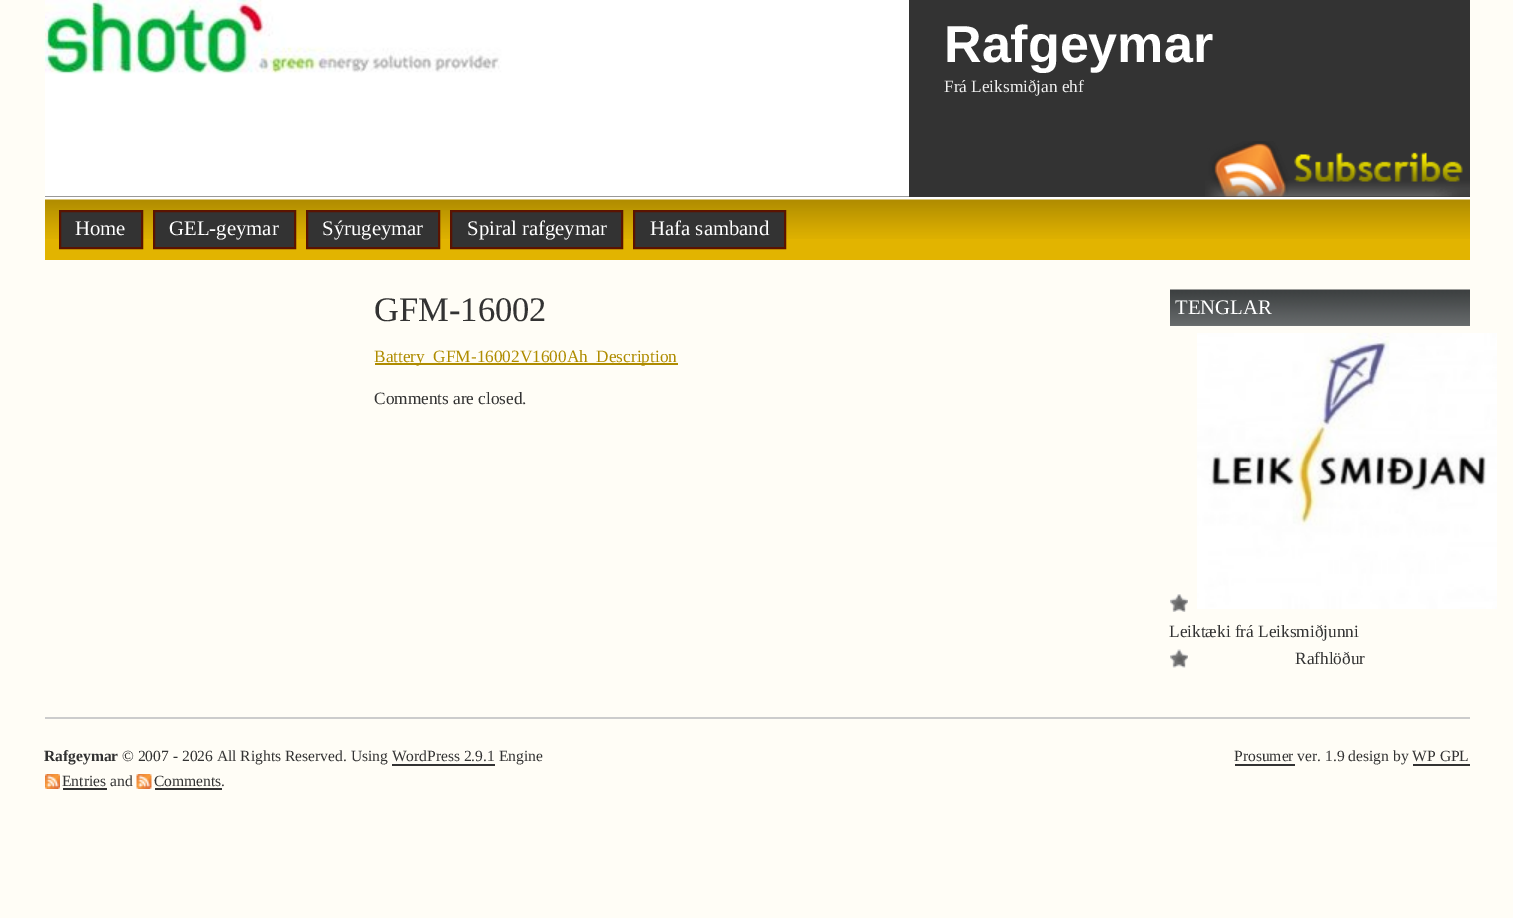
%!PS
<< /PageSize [1513 918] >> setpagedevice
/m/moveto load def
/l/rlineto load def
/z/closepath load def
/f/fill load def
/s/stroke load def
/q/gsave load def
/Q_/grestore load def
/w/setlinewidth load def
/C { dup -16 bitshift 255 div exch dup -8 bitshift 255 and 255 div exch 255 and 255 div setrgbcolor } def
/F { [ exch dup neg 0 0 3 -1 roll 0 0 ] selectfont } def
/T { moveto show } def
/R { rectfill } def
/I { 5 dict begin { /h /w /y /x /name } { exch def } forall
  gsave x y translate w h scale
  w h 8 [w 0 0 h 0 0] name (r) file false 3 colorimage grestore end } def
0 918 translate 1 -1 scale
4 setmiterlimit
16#FFFDF6 C
0 0 1513 918 R
16#333333 C
45 0 1425 197 R
16#FFFFFF C
45 197 1425 3 R
(1.rgb) 45 0 864 197 I
/LiberationSans-Bold 52 F
(Rafgeymar) 944 62 T
/LiberationSerif-Regular 17.25 F
16#EFEFEF C
(Frá Leiksmiðjan ehf) 944 92 T
(2.rgb) 1205 141 265 56 I
16#E2B400 C
45 239 1425 21 R
(3.rgb) 45 199 1425 40 I
16#333333 C
60 211 m 82 0 l 0 37 l -82 0 l z q f Q_
16#5A1301 C
2 w
s
/LiberationSerif-Regular 20.75 F
16#FFFFFF C
(Home) 75 235 T
16#333333 C
154 211 m 141 0 l 0 37 l -141 0 l z q f Q_
16#5A1301 C
s
16#FFFFFF C
(GEL-geymar) 169 235 T
16#333333 C
307 211 m 132 0 l 0 37 l -132 0 l z q f Q_
16#5A1301 C
s
16#FFFFFF C
(Sýrugeymar) 322 235 T
16#333333 C
451 211 m 171 0 l 0 37 l -171 0 l z q f Q_
16#5A1301 C
s
16#FFFFFF C
(Spiral rafgeymar) 467 235 T
16#333333 C
634 211 m 151 0 l 0 37 l -151 0 l z q f Q_
16#5A1301 C
s
16#FFFFFF C
(Hafa samband) 650 235 T
/LiberationSerif-Regular 34.5 F
16#333333 C
(GFM-16002) 374 321 T
16#AF8C00 C
375 363 303 2 R
/LiberationSerif-Regular 17.25 F
(Battery_GFM-16002V1600Ah_Description) 374 362 T
16#333333 C
(Comments are closed.) 374 404 T
16#6F7374 C
1170 325 300 1 R
(4.rgb) 1170 289 300 37 I
/LiberationSerif-Regular 20.75 F
16#FFFFFF C
(TENGLAR) 1175 314 T
(5.rgb) 1170 594 18 18 I
(6.rgb) 1197 333 300 276 I
/LiberationSerif-Regular 17.25 F
16#333333 C
(Leiktæki frá Leiksmiðjunni) 1169 637 T
(7.rgb) 1170 649 18 19 I
(Rafhlöður) 1295 664 T
16#CCCCCC C
45 717 1425 2 R
/LiberationSerif-Bold 15.55 F
16#333333 C
(Rafgeymar) 44 761 T
/LiberationSerif-Regular 15.55 F
(© 2007 - 2026 All Rights Reserved. Using WordPress 2.9.1 Engine) 122 761 T
392 764 103 2 R
(8.rgb) 45 774 15 15 I
(Entries and) 62 786 T
63 788 44 2 R
(9.rgb) 136 774 16 15 I
(Comments.) 154 786 T
155 788 67 2 R
1235 764 60 2 R
(Prosumer ver. 1.9 design by WP GPL) 1234 761 T
1413 764 57 2 R
showpage
